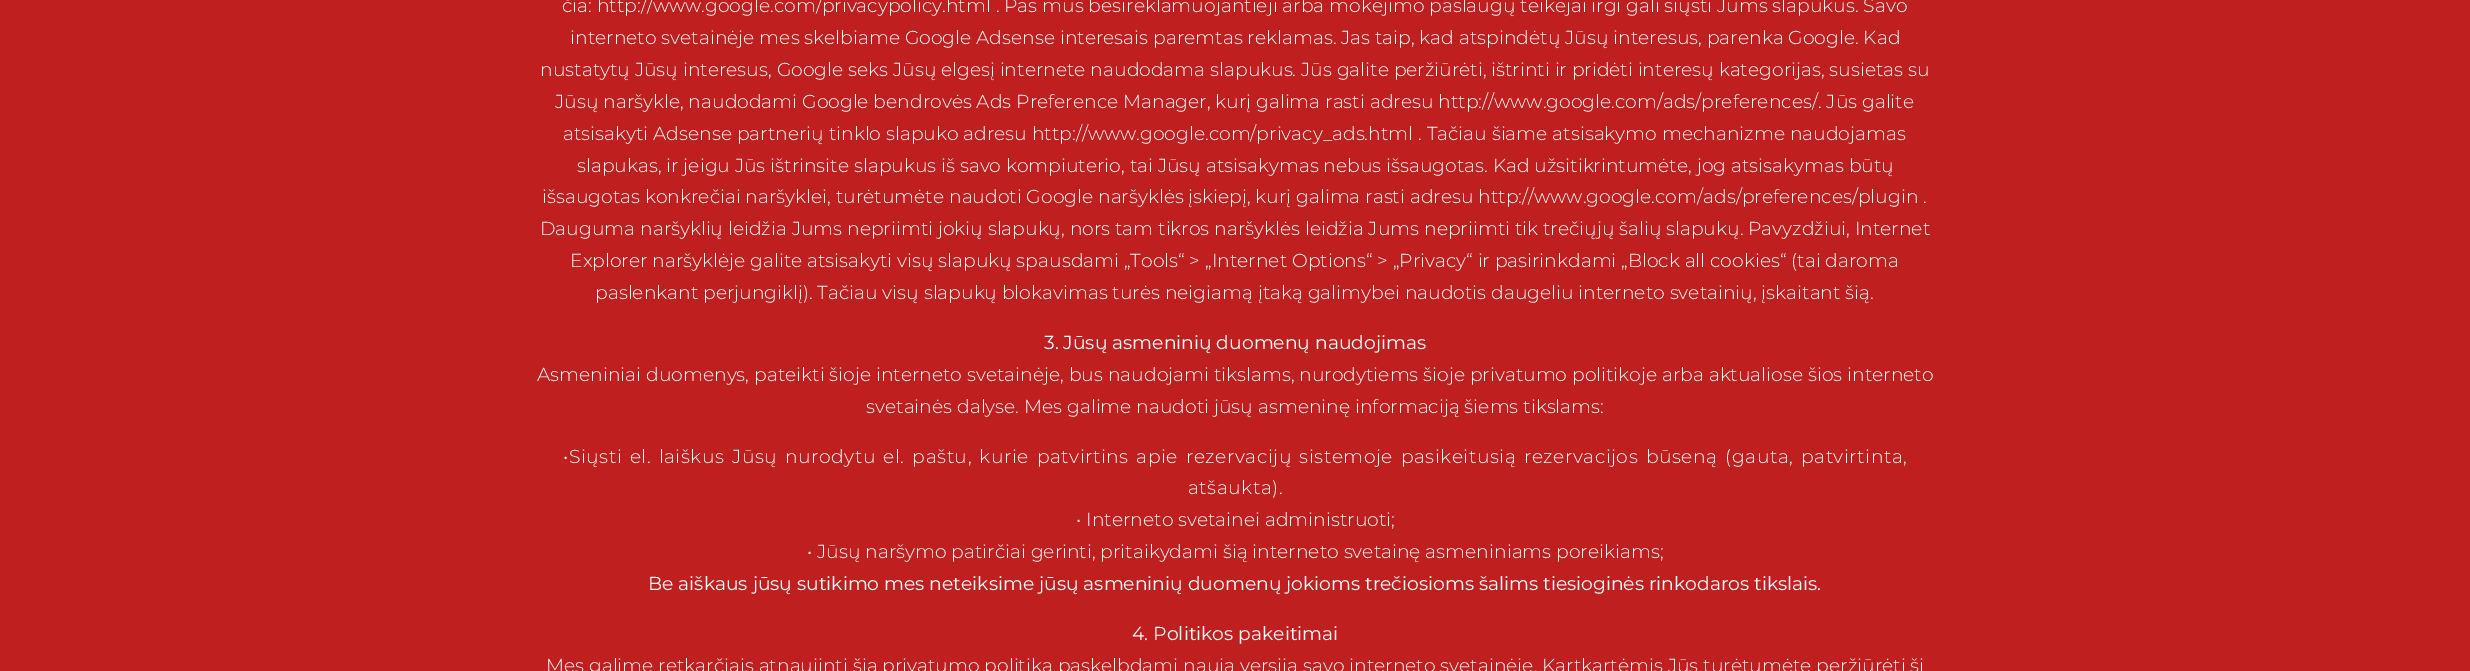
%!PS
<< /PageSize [2470 671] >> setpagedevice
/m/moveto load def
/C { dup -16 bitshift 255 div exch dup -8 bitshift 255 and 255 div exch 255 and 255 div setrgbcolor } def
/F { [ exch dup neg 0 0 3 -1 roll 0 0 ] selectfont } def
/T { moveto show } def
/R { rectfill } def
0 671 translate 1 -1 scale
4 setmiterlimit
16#BF1F1F C
0 0 2470 671 R
/Montserrat-Light 18.75 F
16#FFFFFF C
(čia: http://www.google.com/privacypolicy.html . Pas mus besireklamuojantieji arba mokėjimo paslaugų teikėjai irgi gali siųsti Jums slapukus. Savo) 562 12 T
(interneto svetainėje mes skelbiame Google Adsense interesais paremtas reklamas. Jas taip, kad atspindėtų Jūsų interesus, parenka Google. Kad) 570 44 T
(nustatytų Jūsų interesus, Google seks Jūsų elgesį internete naudodama slapukus. Jūs galite peržiūrėti, ištrinti ir pridėti interesų kategorijas, susietas su) 540 76 T
(Jūsų naršykle, naudodami Google bendrovės Ads Preference Manager, kurį galima rasti adresu http://www.google.com/ads/preferences/. Jūs galite) 555 108 T
(atsisakyti Adsense partnerių tinklo slapuko adresu http://www.google.com/privacy_ads.html . Tačiau šiame atsisakymo mechanizme naudojamas) 563 140 T
(slapukas, ir jeigu Jūs ištrinsite slapukus iš savo kompiuterio, tai Jūsų atsisakymas nebus išsaugotas. Kad užsitikrintumėte, jog atsisakymas būtų) 577 172 T
(išsaugotas konkrečiai naršyklei, turėtumėte naudoti Google naršyklės įskiepį, kurį galima rasti adresu http://www.google.com/ads/preferences/plugin .) 542 203 T
(Dauguma naršyklių leidžia Jums nepriimti jokių slapukų, nors tam tikros naršyklės leidžia Jums nepriimti tik trečiųjų šalių slapukų. Pavyzdžiui, Internet) 540 235 T
(Explorer naršyklėje galite atsisakyti visų slapukų spausdami „Tools“ > „Internet Options“ > „Privacy“ ir pasirinkdami „Block all cookies“ \(tai daroma) 570 267 T
(paslenkant perjungiklį\). Tačiau visų slapukų blokavimas turės neigiamą įtaką galimybei naudotis daugeliu interneto svetainių, įskaitant šią.) 595 299 T
/Montserrat-Regular 18.75 F
(3. Jūsų asmeninių duomenų naudojimas) 1044 349 T
/Montserrat-Light 18.75 F
(Asmeniniai duomenys, pateikti šioje interneto svetainėje, bus naudojami tikslams, nurodytiems šioje privatumo politikoje arba aktualiose šios interneto) 537 381 T
(svetainės dalyse. Mes galime naudoti jūsų asmeninę informaciją šiems tikslams:) 866 413 T
563 463 m 2.4 0 32 .5 0 (•Siųsti el. laiškus Jūsų nurodytu el. paštu, kurie patvirtins apie rezervacijų sistemoje pasikeitusią rezervacijos būseną \(gauta, patvirtinta,) awidthshow
1188 494 m .5 0 (atšaukta\).) ashow
(• Interneto svetainei administruoti;) 1076 526 T
(• Jūsų naršymo patirčiai gerinti, pritaikydami šią interneto svetainę asmeniniams poreikiams;) 807 558 T
/Montserrat-Regular 18.75 F
(Be aiškaus jūsų sutikimo mes neteiksime jūsų asmeninių duomenų jokioms trečiosioms šalims tiesioginės rinkodaros tikslais.) 648 590 T
(4. Politikos pakeitimai) 1132 640 T
/Montserrat-Light 18.75 F
(Mes galime retkarčiais atnaujinti šią privatumo politiką paskelbdami naują versiją savo interneto svetainėje. Kartkartėmis Jūs turėtumėte peržiūrėti šį) 546 672 T
showpage
